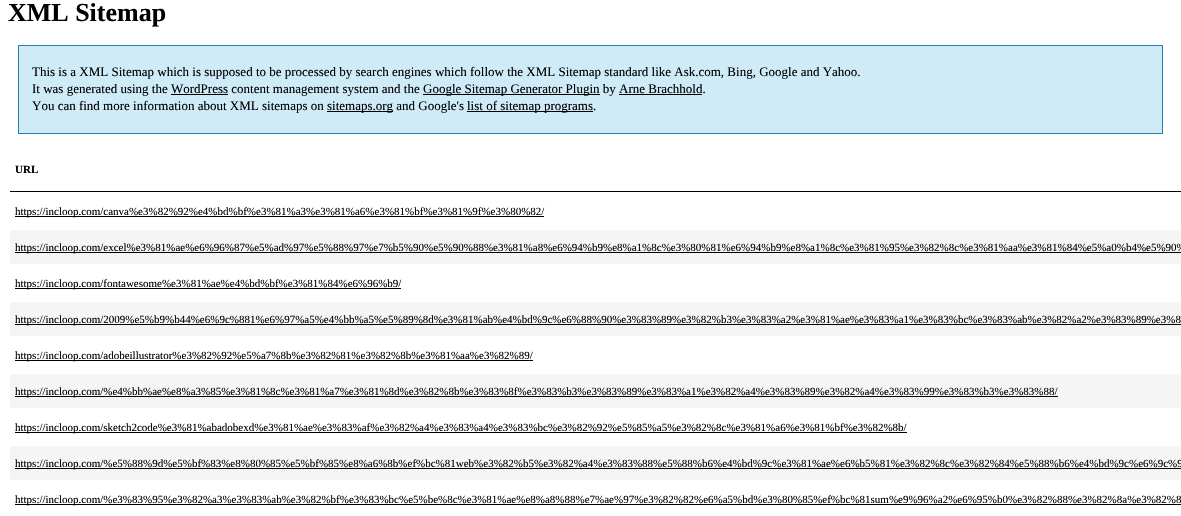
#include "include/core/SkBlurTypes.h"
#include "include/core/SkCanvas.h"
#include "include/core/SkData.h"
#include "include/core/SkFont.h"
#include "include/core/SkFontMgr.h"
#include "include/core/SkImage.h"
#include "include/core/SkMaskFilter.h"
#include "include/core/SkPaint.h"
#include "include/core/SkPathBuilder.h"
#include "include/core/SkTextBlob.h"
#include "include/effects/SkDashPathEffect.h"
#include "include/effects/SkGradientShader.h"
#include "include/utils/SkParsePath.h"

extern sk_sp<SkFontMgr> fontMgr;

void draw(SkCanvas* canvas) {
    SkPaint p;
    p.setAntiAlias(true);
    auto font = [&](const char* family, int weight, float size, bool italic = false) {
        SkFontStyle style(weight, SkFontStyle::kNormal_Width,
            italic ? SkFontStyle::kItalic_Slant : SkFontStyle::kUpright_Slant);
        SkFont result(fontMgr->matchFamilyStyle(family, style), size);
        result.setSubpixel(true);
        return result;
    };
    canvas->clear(0xFFFFFFFF);
    auto font1 = font("Liberation Serif", 700, 26);
    p.setColor(0xFF000000);
    canvas->drawString("XML Sitemap", 8, 21, font1, p);
    p.setColor(0xFFCFEBF7);
    canvas->drawRect(SkRect::MakeLTRB(18.5f, 45.5f, 1162.5f, 133.5f), p);
    p.setStyle(SkPaint::kStroke_Style);
    p.setStrokeWidth(1);
    p.setColor(0xFF2580B2);
    canvas->drawRect(SkRect::MakeLTRB(18.5f, 45.5f, 1162.5f, 133.5f), p);
    auto font2 = font("Liberation Serif", 400, 13);
    p.setStyle(SkPaint::kFill_Style);
    p.setColor(0xFF000000);
    canvas->drawString("This is a XML Sitemap which is supposed to be processed by search engines which follow the XML Sitemap standard like Ask.com, Bing, Google and Yahoo.", 32, 76, font2, p);
    canvas->drawString("It was generated using the WordPress content management system and the", 32, 93, font2, p);
    canvas->drawRect(SkRect::MakeLTRB(423, 94, 600, 95), p);
    canvas->drawString("Google Sitemap Generator Plugin by Arne Brachhold.", 423, 93, font2, p);
    canvas->drawRect(SkRect::MakeLTRB(171, 94, 228, 95), p);
    canvas->drawRect(SkRect::MakeLTRB(619, 94, 702, 95), p);
    canvas->drawString("You can find more information about XML sitemaps on", 32, 110, font2, p);
    canvas->drawRect(SkRect::MakeLTRB(327, 111, 393, 112), p);
    canvas->drawString("sitemaps.org and Google's", 327, 110, font2, p);
    canvas->drawRect(SkRect::MakeLTRB(467, 111, 593, 112), p);
    canvas->drawString("list of sitemap programs.", 467, 110, font2, p);
    canvas->drawRect(SkRect::MakeLTRB(10, 191, 1181, 192), p);
    auto font3 = font("Liberation Serif", 700, 11);
    canvas->drawString("URL", 15, 173, font3, p);
    canvas->drawRect(SkRect::MakeLTRB(15, 216, 544, 217), p);
    auto font4 = font("Liberation Serif", 400, 11);
    canvas->drawString("https://incloop.com/canva%e3%82%92%e4%bd%bf%e3%81%a3%e3%81%a6%e3%81%bf%e3%81%9f%e3%80%82/", 15, 215, font4, p);
    p.setColor(0xFFF5F5F5);
    canvas->drawRect(SkRect::MakeLTRB(10, 230, 1181, 264), p);
    p.setColor(0xFF000000);
    canvas->drawRect(SkRect::MakeLTRB(15, 252, 1181, 253), p);
    canvas->drawString("https://incloop.com/excel%e3%81%ae%e6%96%87%e5%ad%97%e5%88%97%e7%b5%90%e5%90%88%e3%81%a8%e6%94%b9%e8%a1%8c%e3%80%81%e6%94%b9%e8%a1%8c%e3%81%95%e3%82%8c%e3%81%aa%e3%81%84%e5%a0%b4%e5%90%", 15, 251, font4, p);
    canvas->drawRect(SkRect::MakeLTRB(15, 288, 401, 289), p);
    canvas->drawString("https://incloop.com/fontawesome%e3%81%ae%e4%bd%bf%e3%81%84%e6%96%b9/", 15, 287, font4, p);
    p.setColor(0xFFF5F5F5);
    canvas->drawRect(SkRect::MakeLTRB(10, 302, 1181, 336), p);
    p.setColor(0xFF000000);
    canvas->drawRect(SkRect::MakeLTRB(15, 324, 1181, 325), p);
    canvas->drawString("https://incloop.com/2009%e5%b9%b44%e6%9c%881%e6%97%a5%e4%bb%a5%e5%89%8d%e3%81%ab%e4%bd%9c%e6%88%90%e3%83%89%e3%82%b3%e3%83%a2%e3%81%ae%e3%83%a1%e3%83%bc%e3%83%ab%e3%82%a2%e3%83%89%e3%8", 15, 323, font4, p);
    canvas->drawRect(SkRect::MakeLTRB(15, 360, 533, 361), p);
    canvas->drawString("https://incloop.com/adobeillustrator%e3%82%92%e5%a7%8b%e3%82%81%e3%82%8b%e3%81%aa%e3%82%89/", 15, 359, font4, p);
    p.setColor(0xFFF5F5F5);
    canvas->drawRect(SkRect::MakeLTRB(10, 374, 1181, 408), p);
    p.setColor(0xFF000000);
    canvas->drawRect(SkRect::MakeLTRB(15, 396, 1058, 397), p);
    canvas->drawString("https://incloop.com/%e4%bb%ae%e8%a3%85%e3%81%8c%e3%81%a7%e3%81%8d%e3%82%8b%e3%83%8f%e3%83%b3%e3%83%89%e3%83%a1%e3%82%a4%e3%83%89%e3%82%a4%e3%83%99%e3%83%b3%e3%83%88/", 15, 395, font4, p);
    canvas->drawRect(SkRect::MakeLTRB(15, 432, 907, 433), p);
    canvas->drawString("https://incloop.com/sketch2code%e3%81%abadobexd%e3%81%ae%e3%83%af%e3%82%a4%e3%83%a4%e3%83%bc%e3%82%92%e5%85%a5%e3%82%8c%e3%81%a6%e3%81%bf%e3%82%8b/", 15, 431, font4, p);
    p.setColor(0xFFF5F5F5);
    canvas->drawRect(SkRect::MakeLTRB(10, 446, 1181, 480), p);
    p.setColor(0xFF000000);
    canvas->drawRect(SkRect::MakeLTRB(15, 468, 1181, 469), p);
    canvas->drawString("https://incloop.com/%e5%88%9d%e5%bf%83%e8%80%85%e5%bf%85%e8%a6%8b%ef%bc%81web%e3%82%b5%e3%82%a4%e3%83%88%e5%88%b6%e4%bd%9c%e3%81%ae%e6%b5%81%e3%82%8c%e3%82%84%e5%88%b6%e4%bd%9c%e6%9c%9", 15, 467, font4, p);
    canvas->drawRect(SkRect::MakeLTRB(15, 504, 1181, 505), p);
    canvas->drawString("https://incloop.com/%e3%83%95%e3%82%a3%e3%83%ab%e3%82%bf%e3%83%bc%e5%be%8c%e3%81%ae%e8%a8%88%e7%ae%97%e3%82%82%e6%a5%bd%e3%80%85%ef%bc%81sum%e9%96%a2%e6%95%b0%e3%82%88%e3%82%8a%e3%82%8", 15, 503, font4, p);
}
